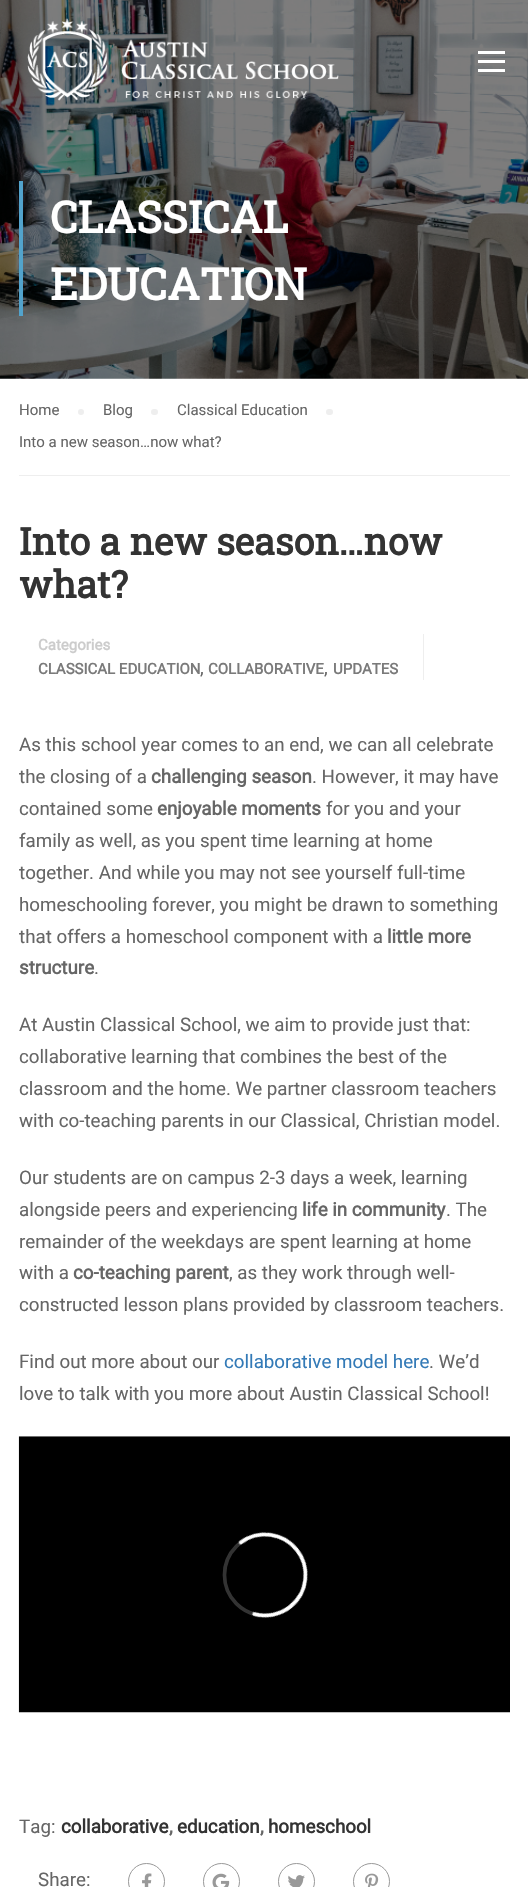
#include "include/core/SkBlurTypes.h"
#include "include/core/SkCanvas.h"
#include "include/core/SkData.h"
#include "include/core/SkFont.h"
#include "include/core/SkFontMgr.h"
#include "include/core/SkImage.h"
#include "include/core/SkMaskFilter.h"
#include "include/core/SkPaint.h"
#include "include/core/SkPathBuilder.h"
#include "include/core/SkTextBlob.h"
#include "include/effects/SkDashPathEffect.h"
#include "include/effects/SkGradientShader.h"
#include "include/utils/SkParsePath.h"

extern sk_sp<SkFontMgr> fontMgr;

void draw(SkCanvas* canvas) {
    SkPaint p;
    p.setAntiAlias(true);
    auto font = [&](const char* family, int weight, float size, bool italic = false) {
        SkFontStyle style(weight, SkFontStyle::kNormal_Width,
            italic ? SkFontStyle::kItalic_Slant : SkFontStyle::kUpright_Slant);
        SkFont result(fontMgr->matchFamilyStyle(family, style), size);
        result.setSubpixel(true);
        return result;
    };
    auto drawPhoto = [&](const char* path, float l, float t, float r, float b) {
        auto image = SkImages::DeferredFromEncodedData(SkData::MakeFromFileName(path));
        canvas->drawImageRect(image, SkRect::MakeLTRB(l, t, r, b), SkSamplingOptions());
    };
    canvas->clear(0xFFFFFFFF);
    drawPhoto("media/2.png", 0, 0, 528, 379);
    drawPhoto("media/1.png", 27, 18, 339, 101);
    {
        const struct { float l, t, r, b; SkColor color; } items[] = {
            {478, 51, 505, 54, 0xFFFFFFFF},
            {478, 60, 505, 63, 0xFFFFFFFF},
            {478, 69, 505, 72, 0xFFFFFFFF},
            {19, 181, 23, 316, 0xFF52A3CC},
        };
        for (auto [l, t, r, b, color] : items) {
            p.setColor(color);
            canvas->drawRect(SkRect::MakeLTRB(l, t, r, b), p);
        }
    }
    auto font1 = font("Roboto Slab", 700, 43.75f);
    p.setColor(0xFFFFFFFF);
    canvas->drawString("CLASSICAL", 50, 233, font1, p);
    canvas->drawString("EDUCATION", 50, 300, font1, p);
    p.setColor(0xFFEEEEEE);
    canvas->drawRect(SkRect::MakeLTRB(19, 475, 510, 476), p);
    auto font2 = font("Roboto", 400, 15);
    p.setColor(0xFF666666);
    canvas->drawString("Home", 19, 415, font2, p);
    p.setColor(0xFFEEEEEE);
    canvas->drawCircle(81, 412, 3, p);
    p.setColor(0xFF666666);
    canvas->drawString("Blog", 103, 415, font2, p);
    p.setColor(0xFFEEEEEE);
    canvas->drawRoundRect(SkRect::MakeLTRB(151, 409, 158, 415), 3, 3, p);
    p.setColor(0xFF666666);
    canvas->drawString("Classical Education", 177, 415, font2, p);
    p.setColor(0xFFEEEEEE);
    canvas->drawRoundRect(SkRect::MakeLTRB(326, 409, 333, 415), 3, 3, p);
    p.setColor(0xFF666666);
    canvas->drawString("Into a new season…now what?", 19, 447, font2, p);
    auto font3 = font("Roboto Slab", 700, 37.5f);
    p.setColor(0xFF333333);
    canvas->drawString("Into a new season…now", 19, 555, font3, p);
    canvas->drawString("what?", 19, 598, font3, p);
    p.setColor(0xFFEEEEEE);
    canvas->drawRect(SkRect::MakeLTRB(423, 634, 424, 680), p);
    auto font4 = font("Roboto", 700, 15);
    p.setColor(0xFFCCCCCC);
    canvas->drawString("Categories", 38, 650, font4, p);
    p.setColor(0xFF7A7A7A);
    canvas->drawString("CLASSICAL EDUCATION", 38, 674, font4, p);
    auto font5 = font("Roboto", 400, 18.75f);
    p.setColor(0xFF666666);
    canvas->drawString(",", 200, 674, font5, p);
    p.setColor(0xFF7A7A7A);
    canvas->drawString("COLLABORATIVE", 208, 674, font4, p);
    p.setColor(0xFF666666);
    canvas->drawString(",", 324, 674, font5, p);
    p.setColor(0xFF7A7A7A);
    canvas->drawString("UPDATES", 333, 674, font4, p);
    p.setColor(0xFF666666);
    canvas->drawString("As this school year comes to an end, we can all celebrate", 19, 751, font5, p);
    canvas->drawString("the closing of a", 19, 783, font5, p);
    auto font6 = font("Roboto", 700, 18.75f);
    canvas->drawString("challenging season", 151, 783, font6, p);
    canvas->drawString(". However, it may have", 312, 783, font5, p);
    canvas->drawString("contained some", 19, 815, font5, p);
    canvas->drawString("enjoyable moments", 157, 815, font6, p);
    {
        const struct { const char* s; float x, y; } items[] = {
            {"for you and your", 326, 815},
            {"family as well, as you spent time learning at home", 19, 847},
            {"together. And while you may not see yourself full-time", 19, 879},
            {"homeschooling forever, you might be drawn to something", 19, 911},
            {"that offers a homeschool component with a", 19, 943},
        };
        for (auto [s, x, y] : items) {
            canvas->drawString(s, x, y, font5, p);
        }
    }
    canvas->drawString("little more", 387, 943, font6, p);
    canvas->drawString("structure", 19, 974, font6, p);
    {
        const struct { const char* s; float x, y; } items[] = {
            {".", 94, 974},
            {"At Austin Classical School, we aim to provide just that:", 19, 1031},
            {"collaborative learning that combines the best of the", 19, 1063},
            {"classroom and the home. We partner classroom teachers", 19, 1095},
            {"with co-teaching parents in our Classical, Christian model.", 19, 1127},
            {"Our students are on campus 2-3 days a week, learning", 19, 1184},
            {"alongside peers and experiencing", 19, 1216},
        };
        for (auto [s, x, y] : items) {
            canvas->drawString(s, x, y, font5, p);
        }
    }
    canvas->drawString("life in community", 302, 1216, font6, p);
    {
        const struct { const char* s; float x, y; } items[] = {
            {". The", 446, 1216},
            {"remainder of the weekdays are spent learning at home", 19, 1248},
            {"with a", 19, 1279},
        };
        for (auto [s, x, y] : items) {
            canvas->drawString(s, x, y, font5, p);
        }
    }
    canvas->drawString("co-teaching parent", 73, 1279, font6, p);
    {
        const struct { const char* s; float x, y; } items[] = {
            {", as they work through well-", 229, 1279},
            {"constructed lesson plans provided by classroom teachers.", 19, 1311},
            {"Find out more about our", 19, 1368},
        };
        for (auto [s, x, y] : items) {
            canvas->drawString(s, x, y, font5, p);
        }
    }
    p.setColor(0xFF337AB7);
    canvas->drawString("collaborative model here", 224, 1368, font5, p);
    p.setColor(0xFF666666);
    canvas->drawString(". We’d", 429, 1368, font5, p);
    canvas->drawString("love to talk with you more about Austin Classical School!", 19, 1400, font5, p);
    drawPhoto("media/3.png", 18, 1436, 510, 1713);
    canvas->drawString("Tag:", 19, 1833, font5, p);
    p.setColor(0xFF333333);
    canvas->drawString("collaborative", 61, 1833, font6, p);
    p.setColor(0xFF666666);
    canvas->drawString(",", 169, 1833, font6, p);
    p.setColor(0xFF333333);
    canvas->drawString("education", 177, 1833, font6, p);
    p.setColor(0xFF666666);
    canvas->drawString(",", 260, 1833, font6, p);
    p.setColor(0xFF333333);
    canvas->drawString("homeschool", 268, 1833, font6, p);
    p.setColor(0xFF666666);
    canvas->drawString("Share:", 38, 1886, font5, p);
    p.setStyle(SkPaint::kStroke_Style);
    p.setStrokeWidth(1);
    p.setColor(0xFF999999);
    canvas->drawCircle(146.5f, 1881.5f, 18, p);
    drawPhoto("media/4.png", 142, 1873, 152, 1887);
    canvas->drawCircle(221.5f, 1881.5f, 18, p);
    drawPhoto("media/5.png", 212, 1873, 230, 1887);
    canvas->drawCircle(296.5f, 1881.5f, 18, p);
    drawPhoto("media/6.png", 288, 1875, 305, 1887);
    canvas->drawCircle(371.5f, 1881.5f, 18, p);
    drawPhoto("media/7.png", 365, 1873, 379, 1887);
}
